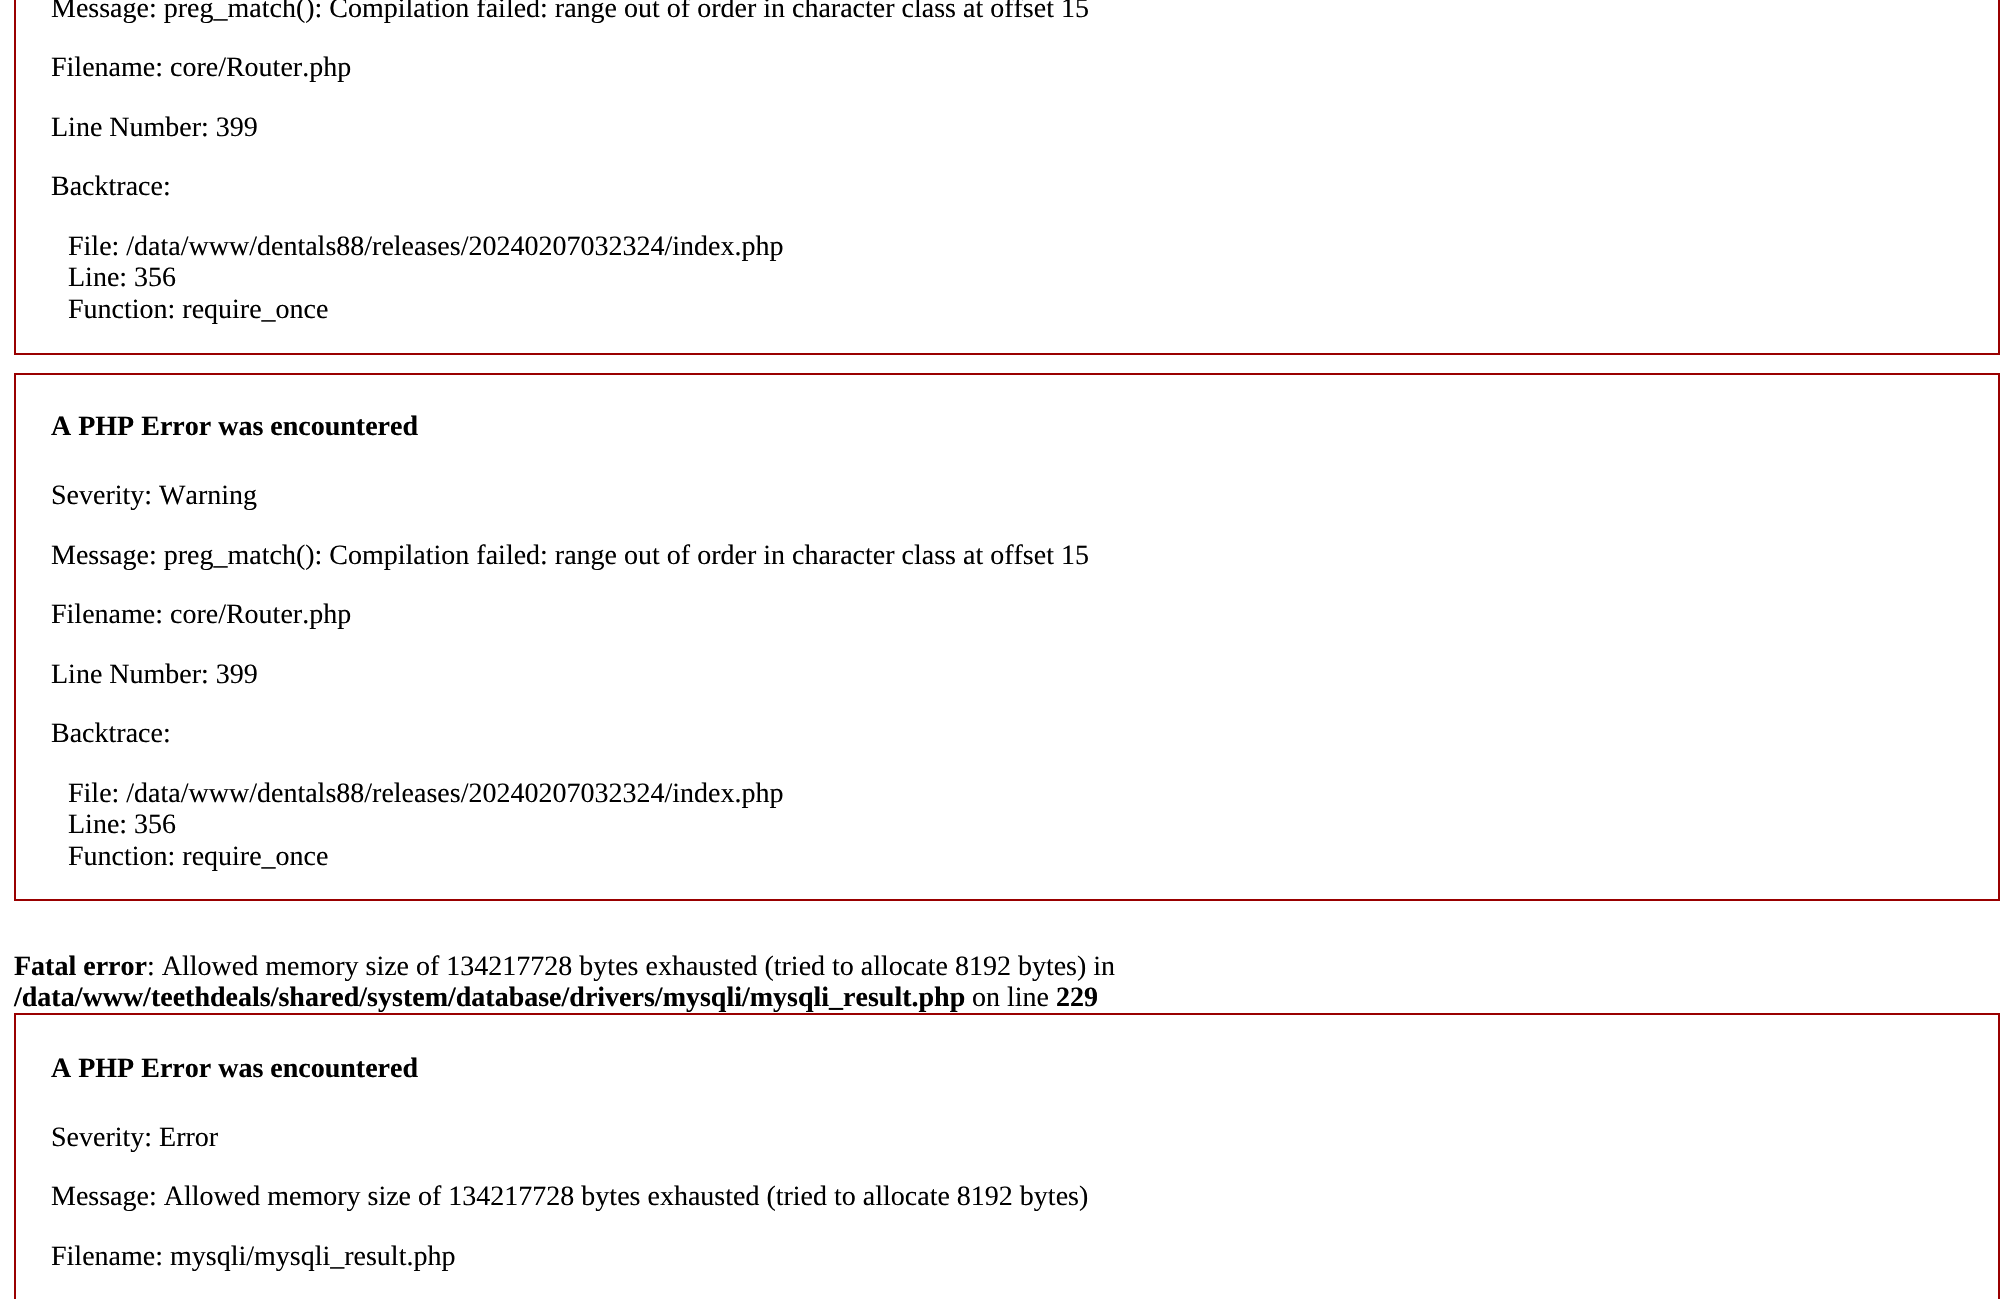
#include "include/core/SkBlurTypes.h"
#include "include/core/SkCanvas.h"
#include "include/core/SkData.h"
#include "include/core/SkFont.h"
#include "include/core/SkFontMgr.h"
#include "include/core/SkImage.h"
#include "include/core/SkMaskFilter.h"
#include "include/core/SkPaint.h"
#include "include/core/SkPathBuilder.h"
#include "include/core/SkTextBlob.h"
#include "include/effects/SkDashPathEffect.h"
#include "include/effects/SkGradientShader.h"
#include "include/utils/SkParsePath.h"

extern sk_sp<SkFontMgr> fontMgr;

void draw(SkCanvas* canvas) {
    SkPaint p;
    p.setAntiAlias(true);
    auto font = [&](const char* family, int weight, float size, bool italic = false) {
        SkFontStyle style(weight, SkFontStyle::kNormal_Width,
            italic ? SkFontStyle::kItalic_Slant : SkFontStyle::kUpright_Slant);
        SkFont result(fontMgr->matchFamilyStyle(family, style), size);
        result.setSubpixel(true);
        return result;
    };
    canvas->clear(0xFFFFFFFF);
    p.setStyle(SkPaint::kStroke_Style);
    p.setStrokeWidth(2);
    p.setColor(0xFF990000);
    canvas->drawRect(SkRect::MakeLTRB(15, -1, 1999, 354), p);
    auto font1 = font("Liberation Serif", 400, 28);
    p.setStyle(SkPaint::kFill_Style);
    p.setColor(0xFF000000);
    {
        const struct { const char* s; float x, y; } items[] = {
            {"Message: preg_match(): Compilation failed: range out of order in character class at offset 15", 51, 17},
            {"Filename: core/Router.php", 51, 76},
            {"Line Number: 399", 51, 136},
            {"Backtrace:", 51, 195},
            {"File: /data/www/dentals88/releases/20240207032324/index.php", 68, 255},
            {"Line: 356", 68, 286},
            {"Function: require_once", 68, 318},
        };
        for (auto [s, x, y] : items) {
            canvas->drawString(s, x, y, font1, p);
        }
    }
    p.setStyle(SkPaint::kStroke_Style);
    p.setColor(0xFF990000);
    canvas->drawRect(SkRect::MakeLTRB(15, 374, 1999, 900), p);
    auto font2 = font("Liberation Serif", 700, 28);
    p.setStyle(SkPaint::kFill_Style);
    p.setColor(0xFF000000);
    canvas->drawString("A PHP Error was encountered", 51, 435, font2, p);
    {
        const struct { const char* s; float x, y; } items[] = {
            {"Severity: Warning", 51, 504},
            {"Message: preg_match(): Compilation failed: range out of order in character class at offset 15", 51, 564},
            {"Filename: core/Router.php", 51, 623},
            {"Line Number: 399", 51, 683},
            {"Backtrace:", 51, 742},
            {"File: /data/www/dentals88/releases/20240207032324/index.php", 68, 802},
            {"Line: 356", 68, 833},
            {"Function: require_once", 68, 865},
        };
        for (auto [s, x, y] : items) {
            canvas->drawString(s, x, y, font1, p);
        }
    }
    canvas->drawString("Fatal error", 14, 975, font2, p);
    canvas->drawString(": Allowed memory size of 134217728 bytes exhausted (tried to allocate 8192 bytes) in", 147, 975, font1, p);
    canvas->drawString("/data/www/teethdeals/shared/system/database/drivers/mysqli/mysqli_result.php", 14, 1006, font2, p);
    canvas->drawString("on line", 972, 1006, font1, p);
    canvas->drawString("229", 1056, 1006, font2, p);
    p.setStyle(SkPaint::kStroke_Style);
    p.setColor(0xFF990000);
    canvas->drawRect(SkRect::MakeLTRB(15, 1014, 1999, 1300), p);
    p.setStyle(SkPaint::kFill_Style);
    p.setColor(0xFF000000);
    canvas->drawString("A PHP Error was encountered", 51, 1077, font2, p);
    {
        const struct { const char* s; float x, y; } items[] = {
            {"Severity: Error", 51, 1146},
            {"Message: Allowed memory size of 134217728 bytes exhausted (tried to allocate 8192 bytes)", 51, 1205},
            {"Filename: mysqli/mysqli_result.php", 51, 1265},
        };
        for (auto [s, x, y] : items) {
            canvas->drawString(s, x, y, font1, p);
        }
    }
}
